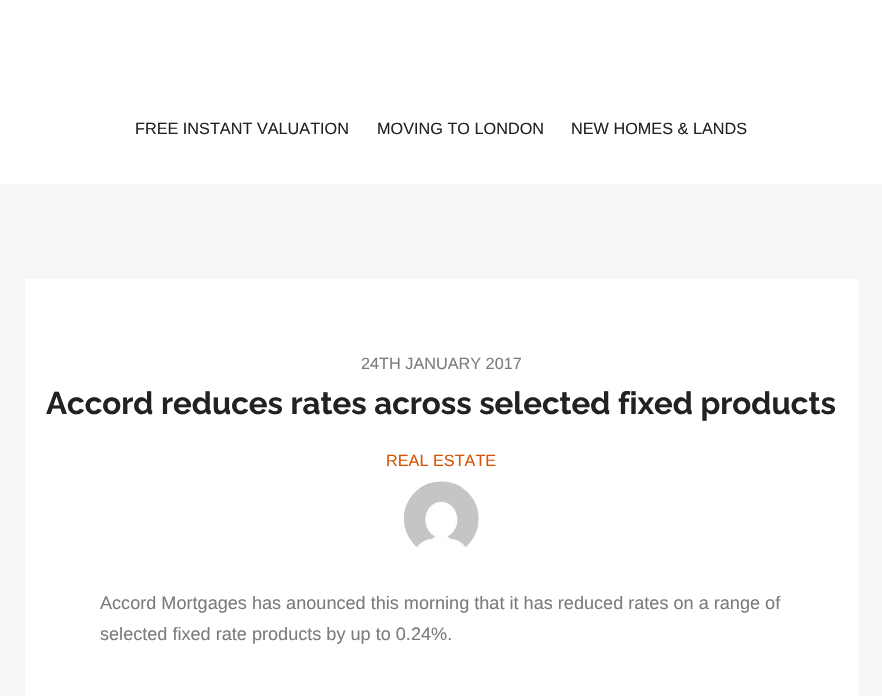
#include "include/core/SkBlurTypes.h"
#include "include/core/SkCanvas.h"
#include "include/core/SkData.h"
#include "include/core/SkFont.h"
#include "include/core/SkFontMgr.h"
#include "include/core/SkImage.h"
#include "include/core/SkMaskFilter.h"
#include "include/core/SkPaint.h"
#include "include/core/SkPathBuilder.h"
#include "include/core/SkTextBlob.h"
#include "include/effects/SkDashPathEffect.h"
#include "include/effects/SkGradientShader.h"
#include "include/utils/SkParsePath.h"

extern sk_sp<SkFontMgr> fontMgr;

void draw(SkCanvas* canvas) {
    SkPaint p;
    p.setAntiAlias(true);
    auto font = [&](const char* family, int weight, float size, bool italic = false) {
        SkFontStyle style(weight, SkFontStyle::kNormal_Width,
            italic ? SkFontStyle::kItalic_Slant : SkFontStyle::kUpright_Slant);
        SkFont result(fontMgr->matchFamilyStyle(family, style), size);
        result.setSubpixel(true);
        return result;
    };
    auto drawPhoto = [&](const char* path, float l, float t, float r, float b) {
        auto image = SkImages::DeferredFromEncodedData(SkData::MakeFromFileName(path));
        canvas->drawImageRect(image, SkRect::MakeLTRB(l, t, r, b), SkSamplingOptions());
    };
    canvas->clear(0xFFF7F7F7);
    p.setColor(0xFFFFFFFF);
    canvas->drawRect(SkRect::MakeLTRB(0, 0, 882, 184), p);
    auto font1 = font("Liberation Sans", 400, 16.25f);
    p.setColor(0xFF222222);
    {
        const struct { const char* s; float x, y; } items[] = {
            {"FREE INSTANT VALUATION", 135, 134},
            {"MOVING TO LONDON", 377, 134},
            {"NEW HOMES & LANDS", 571, 134},
        };
        for (auto [s, x, y] : items) {
            canvas->drawString(s, x, y, font1, p);
        }
    }
    p.setColor(0xFFFFFFFF);
    canvas->drawRect(SkRect::MakeLTRB(25, 279, 858, 696), p);
    p.setColor(0xFF7B7B7B);
    canvas->drawString("24TH JANUARY 2017", 361, 369, font1, p);
    auto font2 = font("Raleway", 700, 31.25f);
    p.setColor(0xFF222222);
    canvas->drawString("Accord reduces rates across selected fixed products", 46, 414, font2, p);
    p.setColor(0xFFD95204);
    canvas->drawString("REAL ESTATE", 386, 466, font1, p);
    drawPhoto("media/1.png", 404, 481, 479, 548);
    auto font3 = font("Liberation Sans", 400, 18.1f);
    p.setColor(0xFF7B7B7B);
    canvas->drawString("Accord Mortgages has anounced this morning that it has reduced rates on a range of", 100, 609, font3, p);
    canvas->drawString("selected fixed rate products by up to 0.24%.", 100, 640, font3, p);
}
